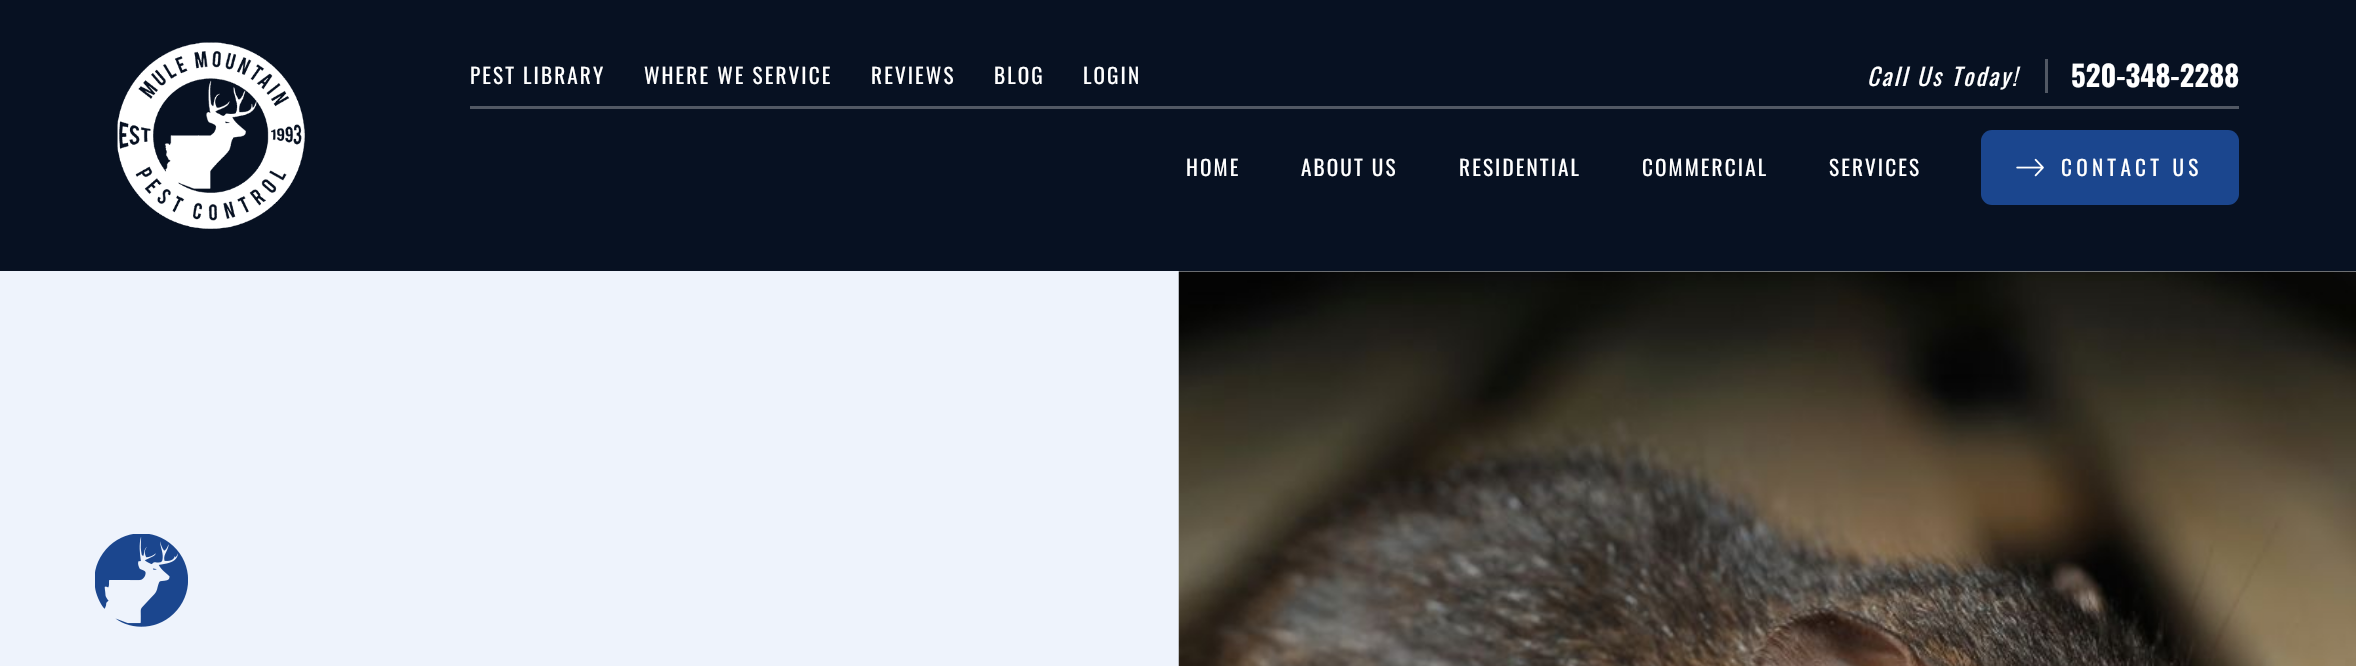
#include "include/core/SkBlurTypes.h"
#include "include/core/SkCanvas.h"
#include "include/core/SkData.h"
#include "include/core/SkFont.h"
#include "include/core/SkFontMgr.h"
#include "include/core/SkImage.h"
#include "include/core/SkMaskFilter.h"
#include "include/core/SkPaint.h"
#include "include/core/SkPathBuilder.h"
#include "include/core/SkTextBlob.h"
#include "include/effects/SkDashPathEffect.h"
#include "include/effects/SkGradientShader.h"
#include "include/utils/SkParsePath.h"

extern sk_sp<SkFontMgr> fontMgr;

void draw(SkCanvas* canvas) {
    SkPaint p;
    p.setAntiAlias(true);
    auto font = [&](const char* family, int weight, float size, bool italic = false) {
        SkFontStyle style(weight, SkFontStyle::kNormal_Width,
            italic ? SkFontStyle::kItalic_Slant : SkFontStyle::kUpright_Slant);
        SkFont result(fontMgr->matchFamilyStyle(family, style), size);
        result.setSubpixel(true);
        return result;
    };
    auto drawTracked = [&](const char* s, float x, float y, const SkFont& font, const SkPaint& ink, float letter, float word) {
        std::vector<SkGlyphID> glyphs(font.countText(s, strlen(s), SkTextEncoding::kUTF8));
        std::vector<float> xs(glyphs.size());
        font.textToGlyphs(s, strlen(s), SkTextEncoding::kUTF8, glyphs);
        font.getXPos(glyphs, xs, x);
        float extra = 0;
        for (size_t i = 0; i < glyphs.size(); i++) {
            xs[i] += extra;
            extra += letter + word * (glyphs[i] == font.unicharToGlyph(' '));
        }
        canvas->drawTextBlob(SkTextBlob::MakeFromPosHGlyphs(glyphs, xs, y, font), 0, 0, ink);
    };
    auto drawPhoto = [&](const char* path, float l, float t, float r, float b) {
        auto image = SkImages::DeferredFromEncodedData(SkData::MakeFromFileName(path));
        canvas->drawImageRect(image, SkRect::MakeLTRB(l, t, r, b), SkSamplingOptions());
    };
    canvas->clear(0xFFEEF3FC);
    p.setColor(0xFF071122);
    canvas->drawRect(SkRect::MakeLTRB(0, 0, 2356, 271), p);
    drawPhoto("media/1.png", 117, 42, 305, 229);
    p.setColor(0xFF515864);
    canvas->drawRect(SkRect::MakeLTRB(470, 106, 2239, 109), p);
    auto font1 = font("Oswald", 400, 21.25f);
    p.setColor(0xFFFFFFFF);
    {
        const struct { const char* s; float x, y; } items[] = {
            {"PEST LIBRARY", 470, 84},
            {"WHERE WE SERVICE", 644, 84},
            {"REVIEWS", 871, 84},
            {"BLOG", 994, 84},
            {"LOGIN", 1083, 84},
        };
        for (auto [s, x, y] : items) {
            drawTracked(s, x, y, font1, p, 2.1f, 0);
        }
    }
    auto font2 = font("Oswald", 400, 23.75f, true);
    drawTracked("Call Us Today!", 1867, 86, font2, p, 2.3f, 0);
    p.setColor(0xFF515864);
    canvas->drawRect(SkRect::MakeLTRB(2045, 59, 2048, 93), p);
    auto font3 = font("Oswald", 700, 28.75f);
    p.setColor(0xFFFFFFFF);
    canvas->drawString("520-348-2288", 2071, 87, font3, p);
    {
        const struct { const char* s; float x, y; } items[] = {
            {"HOME", 1186, 176},
            {"ABOUT US", 1301, 176},
            {"RESIDENTIAL", 1459, 176},
            {"COMMERCIAL", 1642, 176},
            {"SERVICES", 1829, 176},
        };
        for (auto [s, x, y] : items) {
            drawTracked(s, x, y, font1, p, 2.1f, 0);
        }
    }
    p.setColor(0xFF1B468E);
    canvas->drawRoundRect(SkRect::MakeLTRB(1981, 130, 2239, 205), 11, 11, p);
    drawPhoto("media/2.png", 2016, 158, 2044, 177);
    p.setColor(0xFFFFFFFF);
    drawTracked("CONTACT US", 2061, 176, font1, p, 4.25f, 0);
    drawPhoto("media/3.png", 95, 534, 188, 627);
    drawPhoto("media/4.png", 1178, 271, 2356, 666);
}
